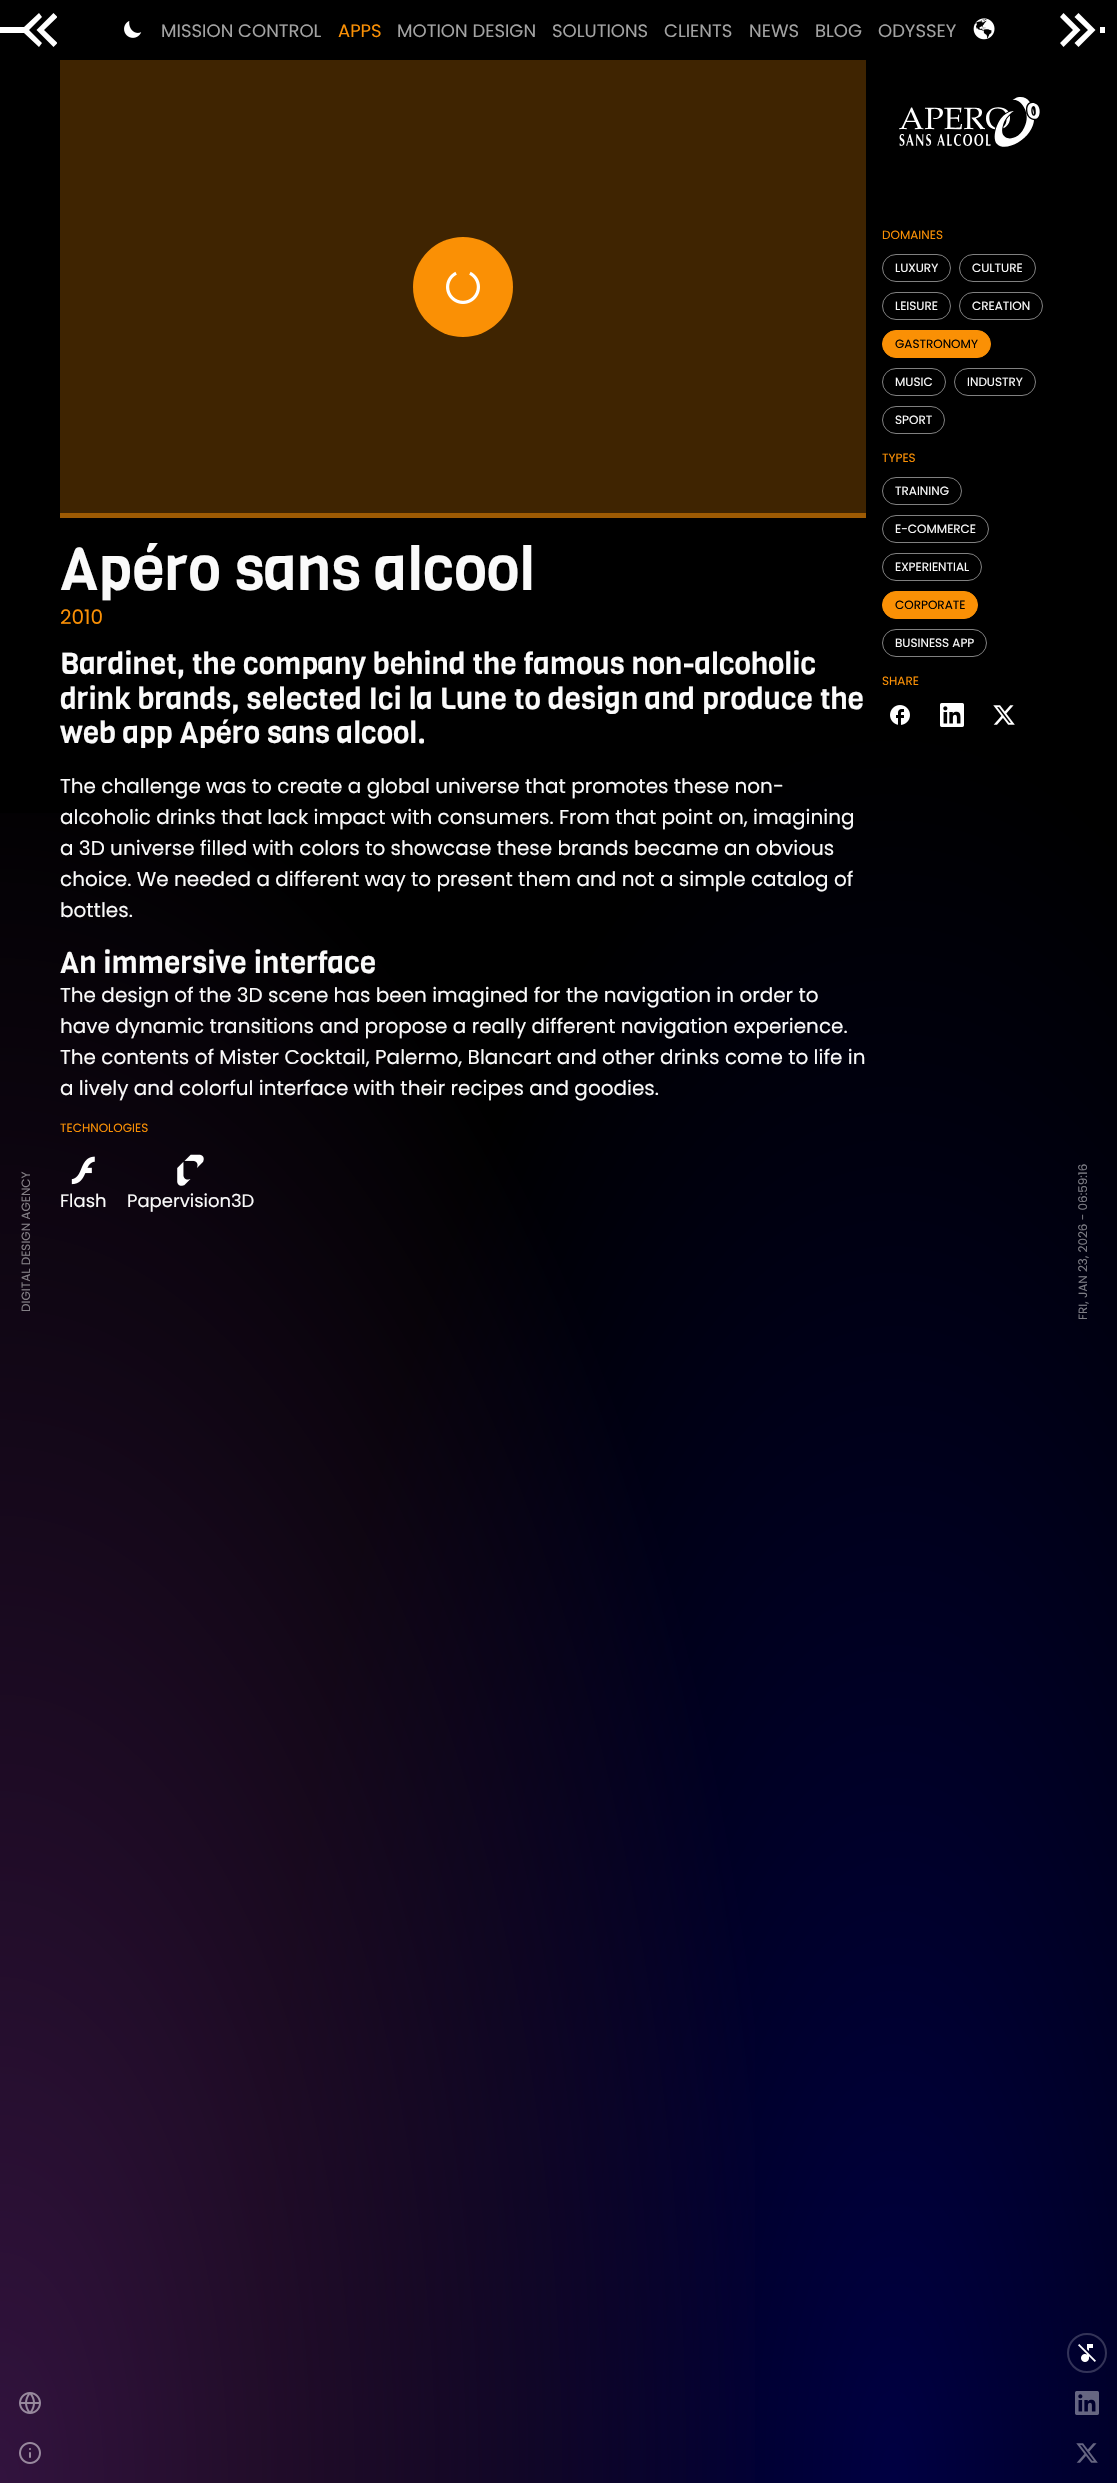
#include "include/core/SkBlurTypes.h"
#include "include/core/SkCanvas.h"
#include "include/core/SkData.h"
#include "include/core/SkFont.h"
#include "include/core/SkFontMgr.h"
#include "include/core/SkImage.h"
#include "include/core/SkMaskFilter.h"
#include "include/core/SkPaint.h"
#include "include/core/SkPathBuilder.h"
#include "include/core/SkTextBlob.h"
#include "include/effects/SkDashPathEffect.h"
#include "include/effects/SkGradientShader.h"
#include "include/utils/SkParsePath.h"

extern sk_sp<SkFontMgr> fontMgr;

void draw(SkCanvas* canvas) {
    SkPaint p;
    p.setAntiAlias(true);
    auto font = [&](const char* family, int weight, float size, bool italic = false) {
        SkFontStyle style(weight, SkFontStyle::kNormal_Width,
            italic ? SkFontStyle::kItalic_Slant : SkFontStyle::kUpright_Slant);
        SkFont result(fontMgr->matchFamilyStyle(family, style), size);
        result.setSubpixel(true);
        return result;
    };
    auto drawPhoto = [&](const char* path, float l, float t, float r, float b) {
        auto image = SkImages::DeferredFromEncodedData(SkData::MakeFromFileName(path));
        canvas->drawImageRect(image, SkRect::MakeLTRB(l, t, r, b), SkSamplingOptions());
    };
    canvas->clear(0xFFFFFFFF);
    {
        const SkColor colors[] = {0xFF000042, 0xFF000000};
        const float stops[] = {0, 0.5f};
        SkMatrix m = SkMatrix::Translate(894, 2483).preScale(1264, 3511);
        p.setShader(SkGradientShader::MakeRadial({0, 0}, 1, colors, stops, 2, SkTileMode::kClamp, 0, &m));
        p.setAlpha(255);
    }
    canvas->drawRect(SkRect::MakeLTRB(0, 0, 1117, 2483), p);
    {
        const SkColor colors[] = {0xFF32133E, 0x0032133E};
        const float stops[] = {0, 0.5f};
        SkMatrix m = SkMatrix::Translate(0, 2483).preScale(1580, 3511);
        p.setShader(SkGradientShader::MakeRadial({0, 0}, 1, colors, stops, 2, SkTileMode::kClamp, 0, &m));
        p.setAlpha(255);
    }
    canvas->drawRect(SkRect::MakeLTRB(0, 813, 755, 2483), p);
    canvas->save();
    canvas->clipRect(SkRect::MakeLTRB(0, 13, 57, 47));
    p.setShader(nullptr);
    p.setColor(0xFFFFFFFF);
    canvas->drawPath(SkPathBuilder().moveTo(57.5f, 17).lineTo(53.5f, 13).lineTo(36.5f, 30).lineTo(53.5f, 47).lineTo(57.5f, 43).lineTo(44, 30).close().detach(), p);
    canvas->restore();
    canvas->drawPath(SkPathBuilder().moveTo(42, 17).lineTo(39, 13).lineTo(24, 27).lineTo(0, 27).lineTo(0, 33).lineTo(24, 33).lineTo(39, 47).lineTo(42, 43).lineTo(29, 30).close().detach(), p);
    canvas->drawPath(SkPathBuilder().moveTo(1063.5f, 13).lineTo(1060, 17).lineTo(1073, 30).lineTo(1060, 43).lineTo(1063.5f, 47).lineTo(1080.5f, 30).close().detach(), p);
    canvas->drawRect(SkRect::MakeLTRB(1100, 27, 1105, 33), p);
    canvas->drawPath(SkPathBuilder().moveTo(1074.5f, 17).lineTo(1088, 30).lineTo(1074.5f, 43).lineTo(1078.5f, 47).lineTo(1095.5f, 30).lineTo(1078.5f, 13).close().detach(), p);
    drawPhoto("media/1.png", 124, 21, 142, 38);
    auto font1 = font("Poppins", 400, 18);
    p.setColor(0xFFA3A3A3);
    canvas->drawString("MISSION CONTROL", 161, 37, font1, p);
    p.setColor(0xFFFA9005);
    canvas->drawString("APPS", 338, 37, font1, p);
    p.setColor(0xFFA3A3A3);
    {
        const struct { const char* s; float x, y; } items[] = {
            {"MOTION DESIGN", 397, 37},
            {"SOLUTIONS", 552, 37},
            {"CLIENTS", 664, 37},
            {"NEWS", 749, 37},
            {"BLOG", 815, 37},
            {"ODYSSEY", 878, 37},
        };
        for (auto [s, x, y] : items) {
            canvas->drawString(s, x, y, font1, p);
        }
    }
    drawPhoto("media/2.png", 973, 18, 995, 40);
    drawPhoto("media/3.png", 899, 97, 1040, 147);
    auto font2 = font("Poppins", 400, 12);
    p.setColor(0xFFFA9005);
    canvas->drawString("DOMAINES", 882, 239, font2, p);
    p.setStyle(SkPaint::kStroke_Style);
    p.setStrokeWidth(1);
    p.setColor(0xFF808080);
    canvas->drawRoundRect(SkRect::MakeLTRB(882.5f, 254.5f, 950.5f, 281.5f), 13.5f, 13.5f, p);
    p.setStyle(SkPaint::kFill_Style);
    p.setColor(0xFFFAFAFA);
    canvas->drawString("LUXURY", 895, 272, font2, p);
    p.setStyle(SkPaint::kStroke_Style);
    p.setColor(0xFF808080);
    canvas->drawRoundRect(SkRect::MakeLTRB(959.5f, 254.5f, 1035.5f, 281.5f), 13.5f, 13.5f, p);
    p.setStyle(SkPaint::kFill_Style);
    p.setColor(0xFFFAFAFA);
    canvas->drawString("CULTURE", 972, 272, font2, p);
    p.setStyle(SkPaint::kStroke_Style);
    p.setColor(0xFF808080);
    canvas->drawRoundRect(SkRect::MakeLTRB(882.5f, 292.5f, 950.5f, 319.5f), 13.5f, 13.5f, p);
    p.setStyle(SkPaint::kFill_Style);
    p.setColor(0xFFFAFAFA);
    canvas->drawString("LEISURE", 895, 310, font2, p);
    p.setStyle(SkPaint::kStroke_Style);
    p.setColor(0xFF808080);
    canvas->drawRoundRect(SkRect::MakeLTRB(959.5f, 292.5f, 1042.5f, 319.5f), 13.5f, 13.5f, p);
    p.setStyle(SkPaint::kFill_Style);
    p.setColor(0xFFFAFAFA);
    canvas->drawString("CREATION", 972, 310, font2, p);
    p.setColor(0xFFFA9005);
    canvas->drawRoundRect(SkRect::MakeLTRB(882.5f, 330.5f, 990.5f, 357.5f), 13.5f, 13.5f, p);
    p.setStyle(SkPaint::kStroke_Style);
    canvas->drawRoundRect(SkRect::MakeLTRB(882.5f, 330.5f, 990.5f, 357.5f), 13.5f, 13.5f, p);
    p.setStyle(SkPaint::kFill_Style);
    p.setColor(0xFF000000);
    canvas->drawString("GASTRONOMY", 895, 348, font2, p);
    p.setStyle(SkPaint::kStroke_Style);
    p.setColor(0xFF808080);
    canvas->drawRoundRect(SkRect::MakeLTRB(882.5f, 368.5f, 945.5f, 395.5f), 13.5f, 13.5f, p);
    p.setStyle(SkPaint::kFill_Style);
    p.setColor(0xFFFAFAFA);
    canvas->drawString("MUSIC", 895, 386, font2, p);
    p.setStyle(SkPaint::kStroke_Style);
    p.setColor(0xFF808080);
    canvas->drawRoundRect(SkRect::MakeLTRB(954.5f, 368.5f, 1035.5f, 395.5f), 13.5f, 13.5f, p);
    p.setStyle(SkPaint::kFill_Style);
    p.setColor(0xFFFAFAFA);
    canvas->drawString("INDUSTRY", 967, 386, font2, p);
    p.setStyle(SkPaint::kStroke_Style);
    p.setColor(0xFF808080);
    canvas->drawRoundRect(SkRect::MakeLTRB(882.5f, 406.5f, 944.5f, 433.5f), 13.5f, 13.5f, p);
    p.setStyle(SkPaint::kFill_Style);
    p.setColor(0xFFFAFAFA);
    canvas->drawString("SPORT", 895, 424, font2, p);
    p.setColor(0xFFFA9005);
    canvas->drawString("TYPES", 882, 462, font2, p);
    p.setStyle(SkPaint::kStroke_Style);
    p.setColor(0xFF808080);
    canvas->drawRoundRect(SkRect::MakeLTRB(882.5f, 477.5f, 961.5f, 504.5f), 13.5f, 13.5f, p);
    p.setStyle(SkPaint::kFill_Style);
    p.setColor(0xFFFAFAFA);
    canvas->drawString("TRAINING", 895, 495, font2, p);
    p.setStyle(SkPaint::kStroke_Style);
    p.setColor(0xFF808080);
    canvas->drawRoundRect(SkRect::MakeLTRB(882.5f, 515.5f, 988.5f, 542.5f), 13.5f, 13.5f, p);
    p.setStyle(SkPaint::kFill_Style);
    p.setColor(0xFFFAFAFA);
    canvas->drawString("E-COMMERCE", 895, 533, font2, p);
    p.setStyle(SkPaint::kStroke_Style);
    p.setColor(0xFF808080);
    canvas->drawRoundRect(SkRect::MakeLTRB(882.5f, 553.5f, 981.5f, 580.5f), 13.5f, 13.5f, p);
    p.setStyle(SkPaint::kFill_Style);
    p.setColor(0xFFFAFAFA);
    canvas->drawString("EXPERIENTIAL", 895, 571, font2, p);
    p.setColor(0xFFFA9005);
    canvas->drawRoundRect(SkRect::MakeLTRB(882.5f, 591.5f, 977.5f, 618.5f), 13.5f, 13.5f, p);
    p.setStyle(SkPaint::kStroke_Style);
    canvas->drawRoundRect(SkRect::MakeLTRB(882.5f, 591.5f, 977.5f, 618.5f), 13.5f, 13.5f, p);
    p.setStyle(SkPaint::kFill_Style);
    p.setColor(0xFF000000);
    canvas->drawString("CORPORATE", 895, 609, font2, p);
    p.setStyle(SkPaint::kStroke_Style);
    p.setColor(0xFF808080);
    canvas->drawRoundRect(SkRect::MakeLTRB(882.5f, 629.5f, 986.5f, 656.5f), 13.5f, 13.5f, p);
    p.setStyle(SkPaint::kFill_Style);
    p.setColor(0xFFFAFAFA);
    canvas->drawString("BUSINESS APP", 895, 647, font2, p);
    p.setColor(0xFFFA9005);
    canvas->drawString("SHARE", 882, 685, font2, p);
    drawPhoto("media/4.png", 890, 705, 910, 725);
    drawPhoto("media/5.png", 940, 703, 964, 727);
    drawPhoto("media/6.png", 993, 705, 1015, 725);
    p.setColor(0xFF3F2401);
    canvas->drawRect(SkRect::MakeLTRB(60, 60, 866, 513), p);
    p.setColor(0xFFFA9005);
    canvas->drawCircle(463, 287, 50, p);
    drawPhoto("media/7.png", 446, 271, 480, 304);
    p.setColor(0xFF9D5A03);
    canvas->drawRect(SkRect::MakeLTRB(60, 513, 866, 518), p);
    auto font3 = font("Viga", 400, 60);
    p.setColor(0xFFFAFAFA);
    canvas->drawString("Apéro sans alcool", 60, 590, font3, p);
    auto font4 = font("Poppins", 400, 20);
    p.setColor(0xFFFA9005);
    canvas->drawString("2010", 60, 624, font4, p);
    auto font5 = font("Viga", 400, 30);
    p.setColor(0xFFFAFAFA);
    {
        const struct { const char* s; float x, y; } items[] = {
            {"Bardinet, the company behind the famous non-alcoholic", 60, 674},
            {"drink brands, selected Ici la Lune to design and produce the", 60, 709},
            {"web app Apéro sans alcool.", 60, 743},
        };
        for (auto [s, x, y] : items) {
            canvas->drawString(s, x, y, font5, p);
        }
    }
    {
        const struct { const char* s; float x, y; } items[] = {
            {"The challenge was to create a global universe that promotes these non-", 60, 793},
            {"alcoholic drinks that lack impact with consumers. From that point on, imagining", 60, 824},
            {"a 3D universe filled with colors to showcase these brands became an obvious", 60, 855},
            {"choice. We needed a different way to present them and not a simple catalog of", 60, 886},
            {"bottles.", 60, 917},
        };
        for (auto [s, x, y] : items) {
            canvas->drawString(s, x, y, font4, p);
        }
    }
    canvas->drawString("An immersive interface", 60, 973, font5, p);
    {
        const struct { const char* s; float x, y; } items[] = {
            {"The design of the 3D scene has been imagined for the navigation in order to", 60, 1002},
            {"have dynamic transitions and propose a really different navigation experience.", 60, 1033},
            {"The contents of Mister Cocktail, Palermo, Blancart and other drinks come to life in", 60, 1064},
            {"a lively and colorful interface with their recipes and goodies.", 60, 1095},
        };
        for (auto [s, x, y] : items) {
            canvas->drawString(s, x, y, font4, p);
        }
    }
    p.setColor(0xFFFA9005);
    canvas->drawString("TECHNOLOGIES", 60, 1132, font2, p);
    drawPhoto("media/8.png", 71, 1156, 95, 1185);
    p.setColor(0xFFFAFAFA);
    canvas->drawString("Flash", 60, 1207, font1, p);
    drawPhoto("media/9.png", 177, 1154, 204, 1186);
    canvas->drawString("Papervision3D", 127, 1207, font1, p);
    p.setColor(0xFF848086);
    canvas->save();
    canvas->rotate(-90, 30, 1312);
    canvas->drawString("DIGITAL DESIGN AGENCY", 30, 1312, font2, p);
    canvas->restore();
    p.setColor(0xFF7D7D85);
    canvas->save();
    canvas->rotate(-90, 1087, 1320);
    canvas->drawString("FRI, JAN 23, 2026 - 06:59:16", 1087, 1320, font2, p);
    canvas->restore();
    drawPhoto("media/10.png", 19, 2392, 41, 2414);
    drawPhoto("media/11.png", 19, 2442, 41, 2464);
    p.setStyle(SkPaint::kStroke_Style);
    p.setStrokeWidth(2);
    p.setColor(0x33FFFFFF);
    canvas->drawCircle(1087, 2353, 19, p);
    drawPhoto("media/12.png", 1078, 2344, 1096, 2362);
    drawPhoto("media/13.png", 1075, 2391, 1099, 2415);
    drawPhoto("media/14.png", 1076, 2443, 1098, 2463);
}
